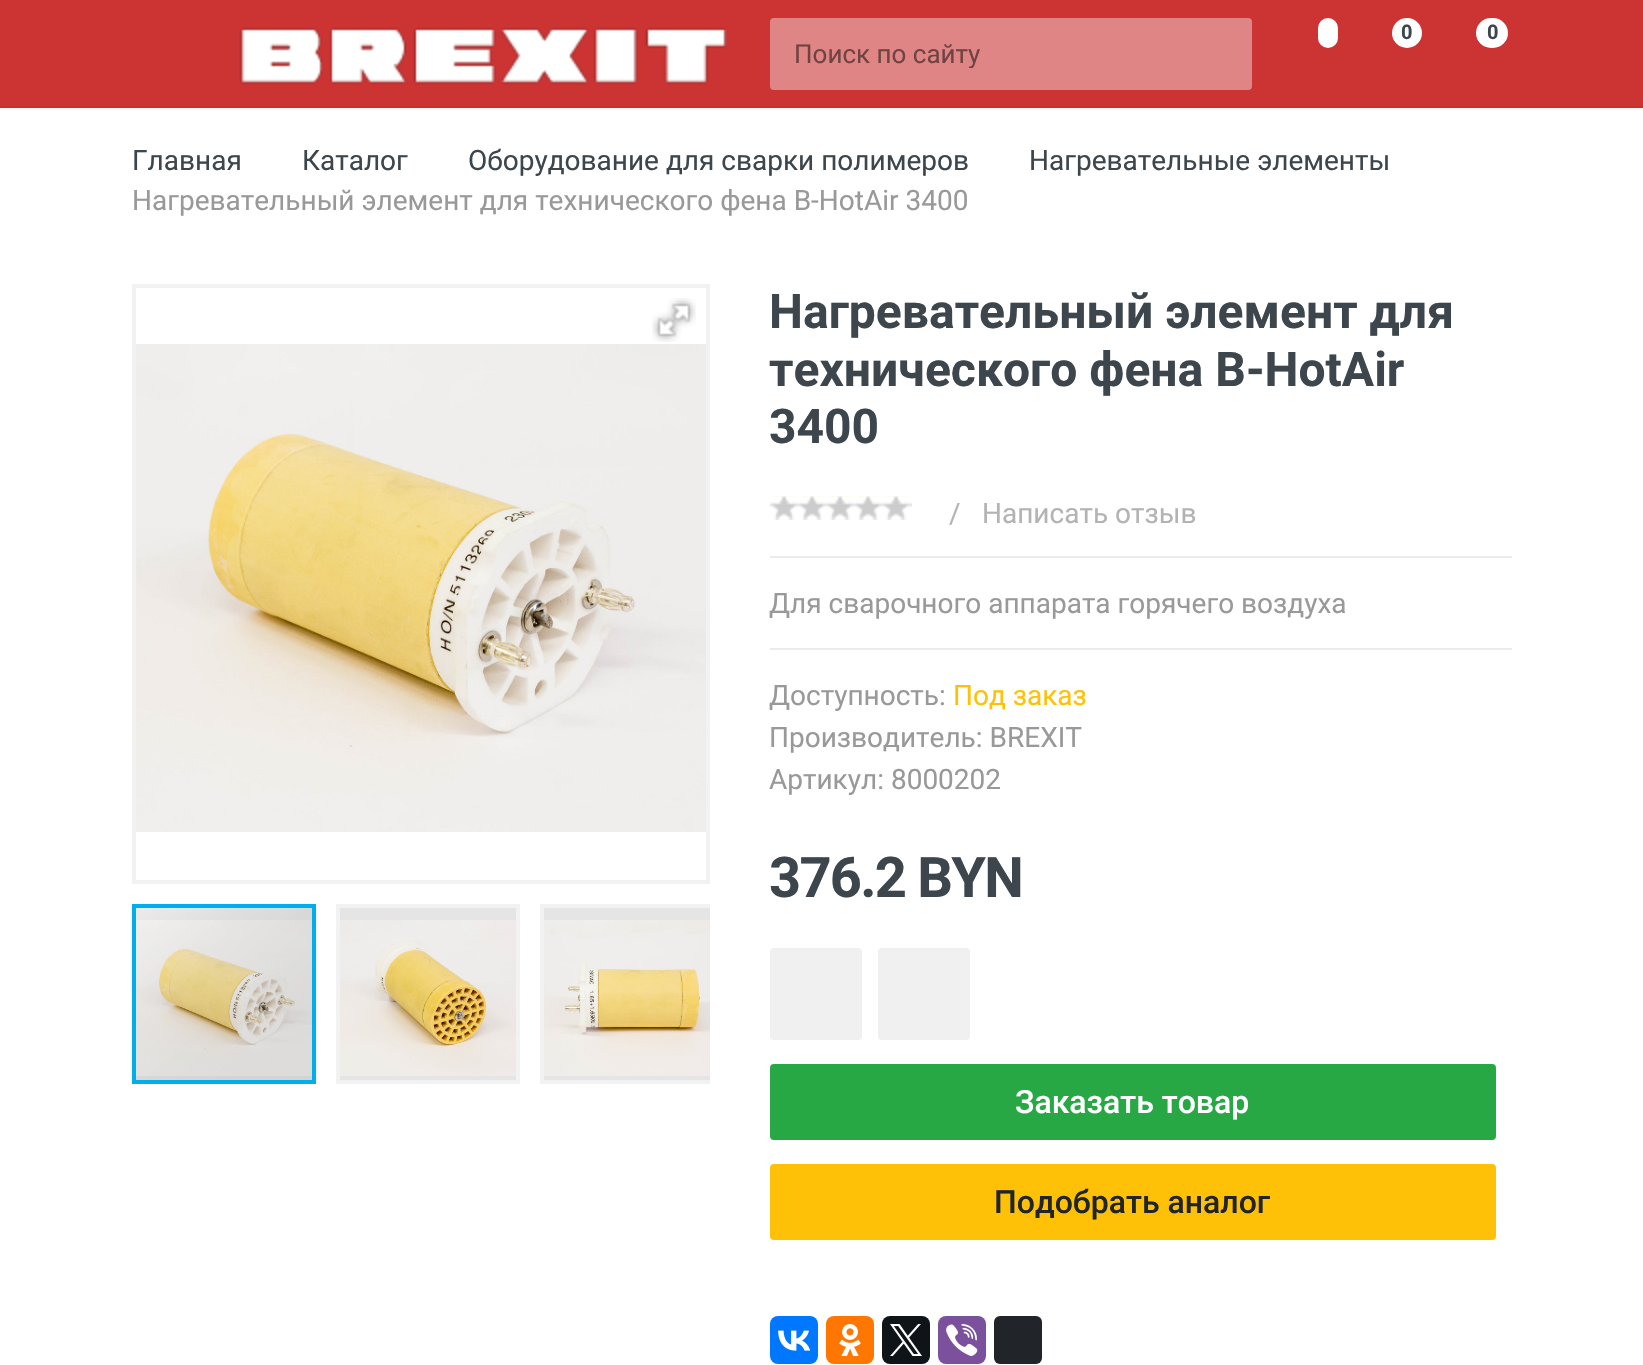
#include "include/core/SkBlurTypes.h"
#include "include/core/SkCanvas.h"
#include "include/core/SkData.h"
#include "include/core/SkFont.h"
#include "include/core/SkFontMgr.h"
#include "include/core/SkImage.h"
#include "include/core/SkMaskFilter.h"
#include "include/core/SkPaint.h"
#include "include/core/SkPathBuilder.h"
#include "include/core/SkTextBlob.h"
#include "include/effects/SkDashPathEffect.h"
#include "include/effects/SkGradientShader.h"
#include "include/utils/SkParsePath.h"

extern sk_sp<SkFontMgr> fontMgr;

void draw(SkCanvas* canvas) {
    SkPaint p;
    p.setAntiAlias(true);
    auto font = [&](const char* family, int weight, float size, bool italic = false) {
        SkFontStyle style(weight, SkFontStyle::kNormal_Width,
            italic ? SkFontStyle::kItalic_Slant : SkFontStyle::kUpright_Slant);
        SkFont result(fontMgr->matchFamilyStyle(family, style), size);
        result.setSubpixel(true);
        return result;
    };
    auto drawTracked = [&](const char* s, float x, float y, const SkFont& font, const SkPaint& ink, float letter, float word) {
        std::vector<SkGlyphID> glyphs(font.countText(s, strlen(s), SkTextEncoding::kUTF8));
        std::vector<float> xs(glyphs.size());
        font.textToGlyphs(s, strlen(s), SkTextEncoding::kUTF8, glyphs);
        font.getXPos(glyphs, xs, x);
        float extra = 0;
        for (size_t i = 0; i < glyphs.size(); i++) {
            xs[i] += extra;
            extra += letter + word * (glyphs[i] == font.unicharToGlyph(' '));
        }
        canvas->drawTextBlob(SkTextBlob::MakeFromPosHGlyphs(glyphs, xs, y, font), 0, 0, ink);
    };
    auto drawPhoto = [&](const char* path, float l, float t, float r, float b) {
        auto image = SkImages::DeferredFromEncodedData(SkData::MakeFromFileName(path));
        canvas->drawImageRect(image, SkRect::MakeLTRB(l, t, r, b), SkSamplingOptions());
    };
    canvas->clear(0xFFFFFFFF);
    {
        const struct { float l, t, r, b; SkColor color; } items[] = {
            {0, 108, 1643, 110, 0xFFF5F5F5},
            {0, 0, 1643, 106, 0xFFCC3333},
            {0, 106, 1643, 108, 0xFFC43131},
        };
        for (auto [l, t, r, b, color] : items) {
            p.setColor(color);
            canvas->drawRect(SkRect::MakeLTRB(l, t, r, b), p);
        }
    }
    drawPhoto("media/1.png", 239, 27, 727, 85);
    p.setColor(0xFFE08585);
    canvas->drawRoundRect(SkRect::MakeLTRB(770, 18, 1252, 90), 4, 4, p);
    canvas->save();
    canvas->clipRect(SkRect::MakeLTRB(794, 38, 1228, 68));
    auto font1 = font("Roboto", 400, 26);
    p.setColor(0xFF704343);
    canvas->drawString("Поиск по сайту", 794, 63, font1, p);
    canvas->restore();
    p.setColor(0xFFFFFFFF);
    canvas->drawRoundRect(SkRect::MakeLTRB(1318, 18, 1338, 48), 10, 10, p);
    canvas->drawCircle(1407, 33, 15, p);
    auto font2 = font("Roboto", 700, 20);
    p.setColor(0xFF3D464D);
    canvas->drawString("0", 1401, 39, font2, p);
    p.setColor(0xFFFFFFFF);
    canvas->drawRoundRect(SkRect::MakeLTRB(1476, 18, 1508, 48), 15, 15, p);
    p.setColor(0xFF3D464D);
    canvas->drawString("0", 1487, 39, font2, p);
    auto font3 = font("Roboto", 400, 28);
    {
        const struct { const char* s; float x, y; } items[] = {
            {"Главная", 132, 170},
            {"Каталог", 302, 170},
            {"Оборудование для сварки полимеров", 468, 170},
            {"Нагревательные элементы", 1029, 170},
        };
        for (auto [s, x, y] : items) {
            canvas->drawString(s, x, y, font3, p);
        }
    }
    p.setColor(0xFF999999);
    canvas->drawString("Нагревательный элемент для технического фена B-HotAir 3400", 132, 210, font3, p);
    p.setStyle(SkPaint::kStroke_Style);
    p.setStrokeWidth(4);
    p.setColor(0xFFF2F2F2);
    canvas->drawRect(SkRect::MakeLTRB(134, 286, 708, 882), p);
    drawPhoto("media/2.png", 136, 344, 706, 832);
    p.setStyle(SkPaint::kFill_Style);
    p.setColor(0xFFE5E5E5);
    canvas->drawRect(SkRect::MakeLTRB(136, 908, 312, 1080), p);
    drawPhoto("media/5.png", 136, 920, 312, 1076);
    {
        const SkColor colors[] = {0x40FFFFFF, 0x1A404040};
        const float stops[] = {0, 1};
        const SkPoint ends[] = {{138, 906}, {310, 1082}};
        p.setShader(SkGradientShader::MakeLinear(ends, colors, stops, 2, SkTileMode::kClamp));
        p.setAlpha(255);
    }
    canvas->drawRect(SkRect::MakeLTRB(136, 908, 312, 1080), p);
    p.setStyle(SkPaint::kStroke_Style);
    p.setShader(nullptr);
    p.setColor(0xFF00AFEA);
    canvas->drawRect(SkRect::MakeLTRB(134, 906, 314, 1082), p);
    p.setStyle(SkPaint::kFill_Style);
    p.setColor(0xFFE5E5E5);
    canvas->drawRect(SkRect::MakeLTRB(338, 906, 518, 1082), p);
    p.setStyle(SkPaint::kStroke_Style);
    p.setColor(0xFFF2F2F2);
    canvas->drawRect(SkRect::MakeLTRB(338, 906, 518, 1082), p);
    drawPhoto("media/3.png", 340, 920, 516, 1076);
    p.setStyle(SkPaint::kFill_Style);
    p.setColor(0xFFE5E5E5);
    canvas->drawRect(SkRect::MakeLTRB(544, 908, 710, 1080), p);
    canvas->save();
    canvas->clipRect(SkRect::MakeLTRB(132, 884, 710, 1104));
    p.setStyle(SkPaint::kStroke_Style);
    p.setColor(0xFFF2F2F2);
    canvas->drawRect(SkRect::MakeLTRB(542, 906, 722, 1082), p);
    canvas->restore();
    drawPhoto("media/4.png", 544, 920, 710, 1076);
    drawPhoto("media/6.png", 652, 298, 696, 342);
    auto font4 = font("Roboto", 700, 48);
    p.setStyle(SkPaint::kFill_Style);
    p.setColor(0xFF3D464D);
    {
        const struct { const char* s; float x, y; } items[] = {
            {"Нагревательный элемент для", 769, 328},
            {"технического фена B-HotAir", 769, 386},
            {"3400", 769, 443},
        };
        for (auto [s, x, y] : items) {
            canvas->drawString(s, x, y, font4, p);
        }
    }
    drawPhoto("media/7.png", 770, 496, 912, 520);
    p.setColor(0xFFB3B3B3);
    canvas->drawString("/", 949, 523, font3, p);
    canvas->drawString("Написать отзыв", 982, 523, font3, p);
    p.setColor(0xFFEBEBEB);
    canvas->drawRect(SkRect::MakeLTRB(770, 556, 1512, 558), p);
    p.setColor(0xFF999999);
    canvas->drawString("Для сварочного аппарата горячего воздуха", 769, 613, font3, p);
    p.setColor(0xFFEBEBEB);
    canvas->drawRect(SkRect::MakeLTRB(770, 648, 1512, 650), p);
    p.setColor(0xFF999999);
    canvas->drawString("Доступность:", 769, 705, font3, p);
    p.setColor(0xFFFFC107);
    canvas->drawString("Под заказ", 953, 705, font3, p);
    p.setColor(0xFF999999);
    canvas->drawString("Производитель: BREXIT", 769, 747, font3, p);
    canvas->drawString("Артикул: 8000202", 769, 789, font3, p);
    auto font5 = font("Roboto", 700, 56);
    p.setColor(0xFF3D464D);
    drawTracked("376.2 BYN", 769, 897, font5, p, -1.75f, 0);
    p.setColor(0xFFF0F0F0);
    canvas->drawRoundRect(SkRect::MakeLTRB(771, 949, 861, 1039), 3, 3, p);
    p.setStyle(SkPaint::kStroke_Style);
    p.setStrokeWidth(2);
    canvas->drawRoundRect(SkRect::MakeLTRB(771, 949, 861, 1039), 3, 3, p);
    p.setStyle(SkPaint::kFill_Style);
    canvas->drawRoundRect(SkRect::MakeLTRB(879, 949, 969, 1039), 3, 3, p);
    p.setStyle(SkPaint::kStroke_Style);
    canvas->drawRoundRect(SkRect::MakeLTRB(879, 949, 969, 1039), 3, 3, p);
    p.setStyle(SkPaint::kFill_Style);
    p.setColor(0xFF28A745);
    canvas->drawRoundRect(SkRect::MakeLTRB(771, 1065, 1495, 1139), 3, 3, p);
    p.setStyle(SkPaint::kStroke_Style);
    canvas->drawRoundRect(SkRect::MakeLTRB(771, 1065, 1495, 1139), 3, 3, p);
    auto font6 = font("Roboto", 500, 32);
    p.setStyle(SkPaint::kFill_Style);
    p.setColor(0xFFFFFFFF);
    canvas->drawString("Заказать товар", 1015, 1113, font6, p);
    p.setColor(0xFFFFC107);
    canvas->drawRoundRect(SkRect::MakeLTRB(771, 1165, 1495, 1239), 3, 3, p);
    p.setStyle(SkPaint::kStroke_Style);
    canvas->drawRoundRect(SkRect::MakeLTRB(771, 1165, 1495, 1239), 3, 3, p);
    p.setStyle(SkPaint::kFill_Style);
    p.setColor(0xFF212529);
    canvas->drawString("Подобрать аналог", 994, 1213, font6, p);
    p.setColor(0xFF0077FF);
    canvas->drawRoundRect(SkRect::MakeLTRB(770, 1316, 818, 1364), 8, 8, p);
    drawPhoto("media/8.png", 778, 1330, 811, 1351);
    p.setColor(0xFFFF7700);
    canvas->drawRoundRect(SkRect::MakeLTRB(826, 1316, 874, 1364), 8, 8, p);
    drawPhoto("media/9.png", 839, 1324, 861, 1356);
    p.setColor(0xFF0F1419);
    canvas->drawRoundRect(SkRect::MakeLTRB(882, 1316, 930, 1364), 8, 8, p);
    drawPhoto("media/10.png", 890, 1324, 922, 1356);
    p.setColor(0xFF7B519D);
    canvas->drawRoundRect(SkRect::MakeLTRB(938, 1316, 986, 1364), 8, 8, p);
    drawPhoto("media/11.png", 946, 1324, 978, 1356);
    p.setColor(0xFF212529);
    canvas->drawRoundRect(SkRect::MakeLTRB(994, 1316, 1042, 1364), 6, 6, p);
}
